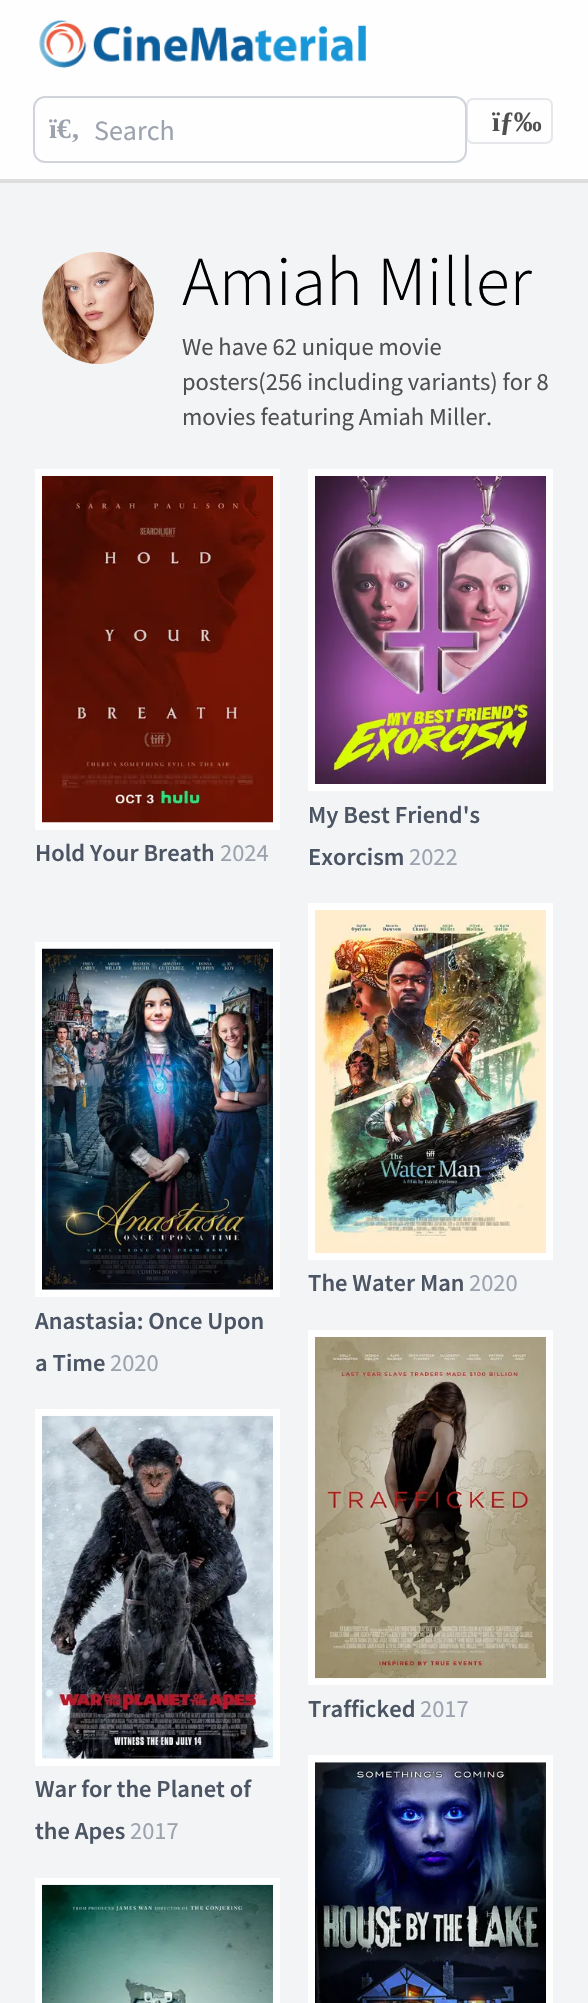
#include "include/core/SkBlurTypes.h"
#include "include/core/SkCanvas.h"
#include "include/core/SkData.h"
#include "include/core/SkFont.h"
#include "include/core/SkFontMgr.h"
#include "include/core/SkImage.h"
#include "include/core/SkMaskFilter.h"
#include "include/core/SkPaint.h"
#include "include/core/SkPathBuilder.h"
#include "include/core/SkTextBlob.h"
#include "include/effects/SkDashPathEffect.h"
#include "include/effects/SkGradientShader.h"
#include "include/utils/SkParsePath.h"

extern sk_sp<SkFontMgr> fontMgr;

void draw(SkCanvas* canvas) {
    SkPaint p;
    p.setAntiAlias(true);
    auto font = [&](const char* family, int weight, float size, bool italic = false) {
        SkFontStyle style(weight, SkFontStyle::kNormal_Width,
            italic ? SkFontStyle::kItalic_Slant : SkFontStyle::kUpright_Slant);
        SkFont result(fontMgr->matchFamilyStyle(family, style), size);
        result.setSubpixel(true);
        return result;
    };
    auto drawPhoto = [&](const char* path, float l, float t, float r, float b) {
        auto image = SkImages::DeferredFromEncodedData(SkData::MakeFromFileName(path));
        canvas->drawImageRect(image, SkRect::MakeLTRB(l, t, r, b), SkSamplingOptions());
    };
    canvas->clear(0xFFF3F4F6);
    p.setColor(0xFFFEFEFF);
    canvas->drawRect(SkRect::MakeLTRB(0, 0, 588, 179), p);
    p.setColor(0xFFDDDDDD);
    canvas->drawRect(SkRect::MakeLTRB(0, 179, 588, 183), p);
    drawPhoto("media/1.png", 39, 20, 366, 68);
    p.setStyle(SkPaint::kStroke_Style);
    p.setStrokeWidth(2);
    p.setColor(0xFFE5E7EB);
    canvas->drawRoundRect(SkRect::MakeLTRB(467, 99, 552, 143), 6, 6, p);
    p.setColor(0xFFD1D5DB);
    canvas->drawRoundRect(SkRect::MakeLTRB(34, 97, 466, 162), 11, 11, p);
    auto font1 = font("Liberation Serif", 700, 28);
    p.setStyle(SkPaint::kFill_Style);
    p.setColor(0xFF9CA3AF);
    canvas->drawString("ï€‚", 49, 138, font1, p);
    auto font2 = font("Source Sans Pro", 400, 28);
    canvas->drawString("Search", 94, 140, font2, p);
    p.setColor(0xFF505050);
    canvas->drawString("ïƒ‰", 492, 131, font1, p);
    drawPhoto("media/2.png", 42, 252, 154, 364);
    auto font3 = font("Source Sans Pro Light", 300, 70);
    p.setColor(0xFF000000);
    canvas->drawString("Amiah Miller", 182, 305, font3, p);
    auto font4 = font("Source Sans Pro", 400, 24.5f);
    p.setColor(0xFF505050);
    {
        const struct { const char* s; float x, y; } items[] = {
            {"We have 62 unique movie", 182, 355},
            {"posters(256 including variants) for 8", 182, 390},
            {"movies featuring Amiah Miller.", 182, 425},
        };
        for (auto [s, x, y] : items) {
            canvas->drawString(s, x, y, font4, p);
        }
    }
    p.setColor(0xFFFFFFFF);
    canvas->drawRect(SkRect::MakeLTRB(35, 469, 280, 830), p);
    drawPhoto("media/3.png", 42, 476, 273, 823);
    auto font5 = font("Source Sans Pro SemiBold", 600, 24.5f);
    p.setColor(0xFF4B5563);
    canvas->drawString("Hold Your Breath", 35, 861, font5, p);
    p.setColor(0xFF9CA3AF);
    canvas->drawString("2024", 220, 861, font4, p);
    p.setColor(0xFFFFFFFF);
    canvas->drawRect(SkRect::MakeLTRB(308, 469, 553, 791), p);
    drawPhoto("media/4.png", 315, 476, 546, 784);
    p.setColor(0xFF4B5563);
    canvas->drawString("My Best Friend's", 308, 823, font5, p);
    canvas->drawString("Exorcism", 308, 865, font5, p);
    p.setColor(0xFF9CA3AF);
    canvas->drawString("2022", 409, 865, font4, p);
    p.setColor(0xFFFFFFFF);
    canvas->drawRect(SkRect::MakeLTRB(308, 903, 553, 1260), p);
    drawPhoto("media/5.png", 315, 910, 546, 1253);
    p.setColor(0xFF4B5563);
    canvas->drawString("The Water Man", 308, 1291, font5, p);
    p.setColor(0xFF9CA3AF);
    canvas->drawString("2020", 469, 1291, font4, p);
    p.setColor(0xFFFFFFFF);
    canvas->drawRect(SkRect::MakeLTRB(35, 942, 280, 1297), p);
    drawPhoto("media/6.png", 42, 948, 273, 1290);
    p.setColor(0xFF4B5563);
    canvas->drawString("Anastasia: Once Upon", 35, 1329, font5, p);
    canvas->drawString("a Time", 35, 1371, font5, p);
    p.setColor(0xFF9CA3AF);
    canvas->drawString("2020", 110, 1371, font4, p);
    p.setColor(0xFFFFFFFF);
    canvas->drawRect(SkRect::MakeLTRB(308, 1330, 553, 1685), p);
    drawPhoto("media/7.png", 315, 1337, 546, 1679);
    p.setColor(0xFF4B5563);
    canvas->drawString("Trafficked", 308, 1717, font5, p);
    p.setColor(0xFF9CA3AF);
    canvas->drawString("2017", 420, 1717, font4, p);
    p.setColor(0xFFFFFFFF);
    canvas->drawRect(SkRect::MakeLTRB(35, 1409, 280, 1766), p);
    drawPhoto("media/8.png", 42, 1415, 273, 1759);
    p.setColor(0xFF4B5563);
    canvas->drawString("War for the Planet of", 35, 1797, font5, p);
    canvas->drawString("the Apes", 35, 1839, font5, p);
    p.setColor(0xFF9CA3AF);
    canvas->drawString("2017", 130, 1839, font4, p);
    p.setColor(0xFFFFFFFF);
    canvas->drawRect(SkRect::MakeLTRB(308, 1755, 553, 2003), p);
    drawPhoto("media/9.png", 315, 1762, 546, 2003);
    canvas->drawRect(SkRect::MakeLTRB(35, 1878, 280, 2003), p);
    drawPhoto("media/10.png", 42, 1884, 273, 2003);
}
